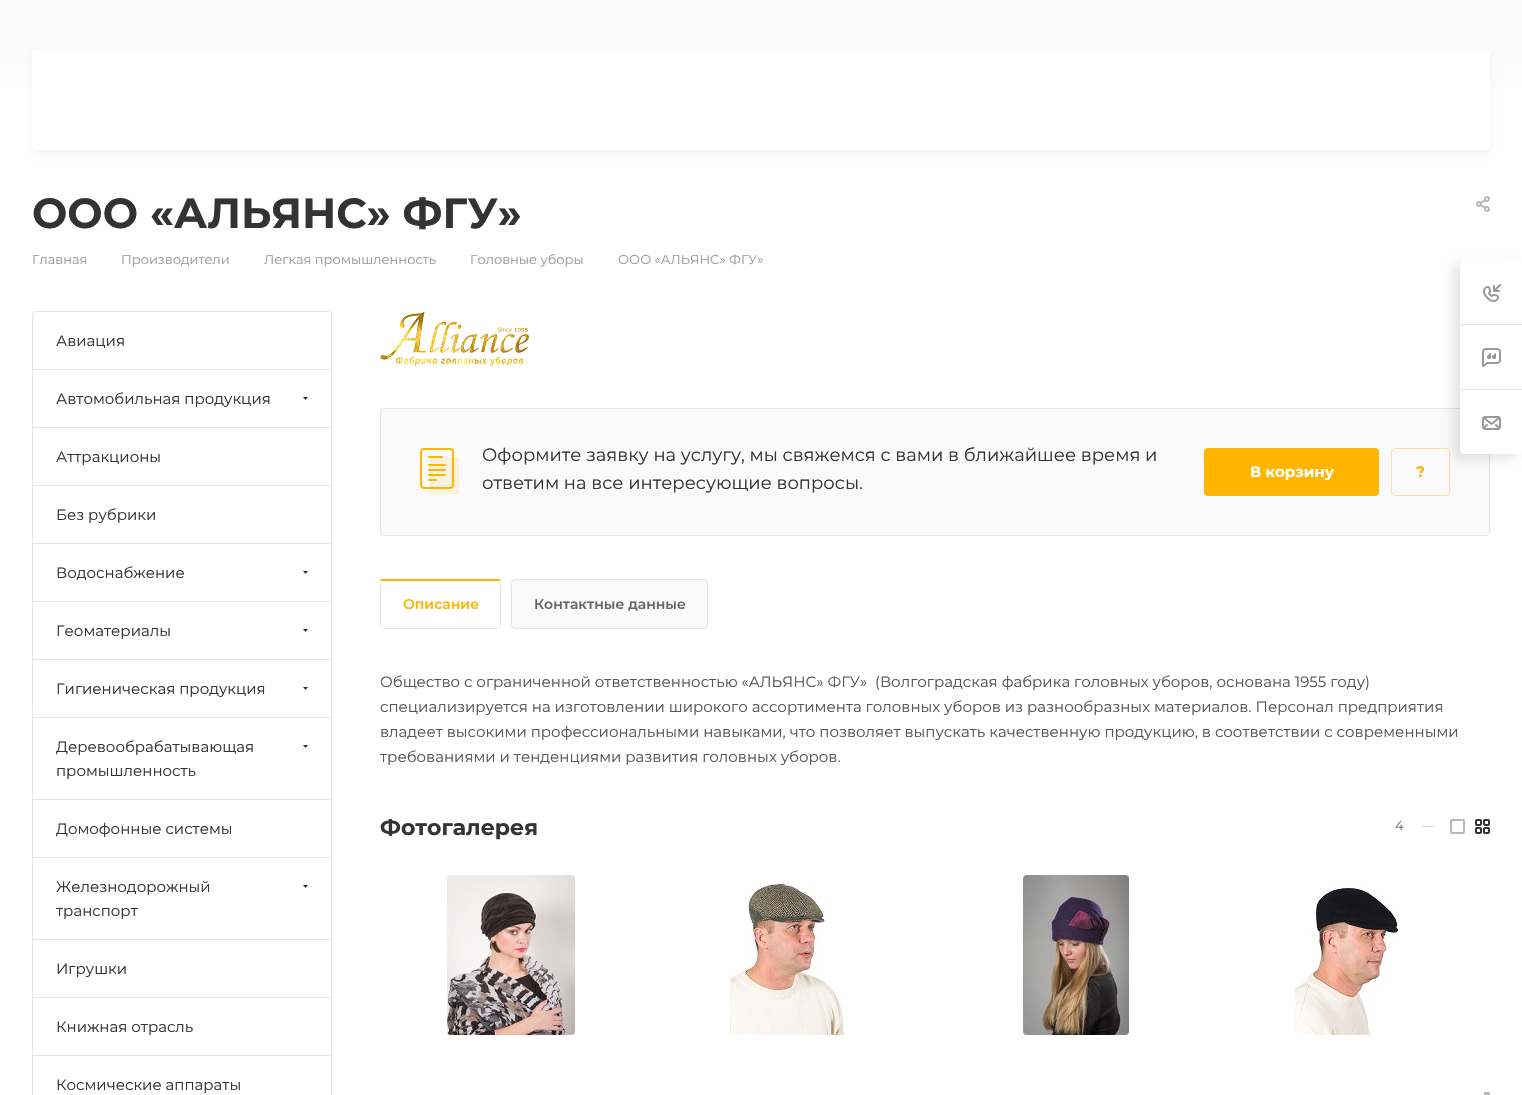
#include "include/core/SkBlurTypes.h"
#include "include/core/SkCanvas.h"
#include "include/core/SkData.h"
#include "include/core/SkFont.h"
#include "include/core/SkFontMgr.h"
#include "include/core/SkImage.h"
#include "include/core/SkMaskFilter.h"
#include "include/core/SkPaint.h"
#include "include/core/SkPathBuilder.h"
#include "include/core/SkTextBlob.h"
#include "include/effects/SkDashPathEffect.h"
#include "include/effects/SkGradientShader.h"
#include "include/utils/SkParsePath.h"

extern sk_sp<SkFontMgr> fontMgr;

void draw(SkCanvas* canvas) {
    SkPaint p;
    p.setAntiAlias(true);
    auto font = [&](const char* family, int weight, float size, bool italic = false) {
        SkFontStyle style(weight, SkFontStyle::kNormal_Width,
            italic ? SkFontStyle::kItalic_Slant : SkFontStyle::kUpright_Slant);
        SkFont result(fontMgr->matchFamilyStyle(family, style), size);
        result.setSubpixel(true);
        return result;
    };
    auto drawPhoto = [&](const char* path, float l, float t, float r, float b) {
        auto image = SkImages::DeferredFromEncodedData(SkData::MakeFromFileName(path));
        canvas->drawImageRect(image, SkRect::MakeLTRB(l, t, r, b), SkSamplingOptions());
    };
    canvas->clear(0xFFFFFFFF);
    {
        const SkColor colors[] = {0xFFF9F9F9, 0xFFFFFFFF};
        const float stops[] = {0, 1};
        const SkPoint ends[] = {{761, 0}, {761, 150}};
        p.setShader(SkGradientShader::MakeLinear(ends, colors, stops, 2, SkTileMode::kClamp));
        p.setAlpha(255);
    }
    canvas->drawRect(SkRect::MakeLTRB(0, 0, 1522, 87), p);
    p.setShader(nullptr);
    p.setColor(0x0D000000);
    p.setMaskFilter(SkMaskFilter::MakeBlur(kNormal_SkBlurStyle, 3.5f));
    canvas->drawRoundRect(SkRect::MakeLTRB(32, 53, 1490, 153), 4, 4, p);
    p.setMaskFilter(nullptr);
    p.setColor(0xFFFFFFFF);
    canvas->drawRoundRect(SkRect::MakeLTRB(32, 50, 1490, 150), 4, 4, p);
    auto font1 = font("Montserrat", 700, 42);
    p.setColor(0xFF333333);
    canvas->drawString("ООО «АЛЬЯНС» ФГУ»", 32, 228, font1, p);
    drawPhoto("media/1.png", 1476, 196, 1490, 212);
    auto font2 = font("Montserrat", 400, 13);
    p.setColor(0xFF999999);
    {
        const struct { const char* s; float x, y; } items[] = {
            {"Главная", 32, 264},
            {"Производители", 121, 264},
            {"Легкая промышленность", 264, 264},
            {"Головные уборы", 470, 264},
            {"ООО «АЛЬЯНС» ФГУ»", 618, 264},
        };
        for (auto [s, x, y] : items) {
            canvas->drawString(s, x, y, font2, p);
        }
    }
    p.setStyle(SkPaint::kStroke_Style);
    p.setStrokeWidth(1);
    p.setColor(0xFFE5E5E5);
    canvas->drawRoundRect(SkRect::MakeLTRB(32.5f, 311.5f, 331.5f, 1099.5f), 3.5f, 3.5f, p);
    auto font3 = font("Montserrat", 400, 15);
    p.setStyle(SkPaint::kFill_Style);
    p.setColor(0xFF333333);
    canvas->drawString("Авиация", 56, 346, font3, p);
    p.setColor(0xFFE5E5E5);
    canvas->drawRect(SkRect::MakeLTRB(33, 369, 331, 370), p);
    p.setColor(0xFF333333);
    canvas->drawString("Автомобильная продукция", 56, 404, font3, p);
    canvas->drawPath(SkPathBuilder(SkPathFillType::kEvenOdd).moveTo(303, 397).lineTo(308, 397).lineTo(305.5f, 400).close().detach(), p);
    p.setColor(0xFFE5E5E5);
    canvas->drawRect(SkRect::MakeLTRB(33, 427, 331, 428), p);
    p.setColor(0xFF333333);
    canvas->drawString("Аттракционы", 56, 462, font3, p);
    p.setColor(0xFFE5E5E5);
    canvas->drawRect(SkRect::MakeLTRB(33, 485, 331, 486), p);
    p.setColor(0xFF333333);
    canvas->drawString("Без рубрики", 56, 520, font3, p);
    p.setColor(0xFFE5E5E5);
    canvas->drawRect(SkRect::MakeLTRB(33, 543, 331, 544), p);
    p.setColor(0xFF333333);
    canvas->drawString("Водоснабжение", 56, 578, font3, p);
    canvas->drawPath(SkPathBuilder(SkPathFillType::kEvenOdd).moveTo(303, 571).lineTo(308, 571).lineTo(305.5f, 574).close().detach(), p);
    p.setColor(0xFFE5E5E5);
    canvas->drawRect(SkRect::MakeLTRB(33, 601, 331, 602), p);
    p.setColor(0xFF333333);
    canvas->drawString("Геоматериалы", 56, 636, font3, p);
    canvas->drawPath(SkPathBuilder(SkPathFillType::kEvenOdd).moveTo(303, 629).lineTo(308, 629).lineTo(305.5f, 632).close().detach(), p);
    p.setColor(0xFFE5E5E5);
    canvas->drawRect(SkRect::MakeLTRB(33, 659, 331, 660), p);
    p.setColor(0xFF333333);
    canvas->drawString("Гигиеническая продукция", 56, 694, font3, p);
    canvas->drawPath(SkPathBuilder(SkPathFillType::kEvenOdd).moveTo(303, 687).lineTo(308, 687).lineTo(305.5f, 690).close().detach(), p);
    p.setColor(0xFFE5E5E5);
    canvas->drawRect(SkRect::MakeLTRB(33, 717, 331, 718), p);
    p.setColor(0xFF333333);
    canvas->drawString("Деревообрабатывающая", 56, 752, font3, p);
    canvas->drawPath(SkPathBuilder(SkPathFillType::kEvenOdd).moveTo(303, 745).lineTo(308, 745).lineTo(305.5f, 748).close().detach(), p);
    canvas->drawString("промышленность", 56, 776, font3, p);
    p.setColor(0xFFE5E5E5);
    canvas->drawRect(SkRect::MakeLTRB(33, 799, 331, 800), p);
    p.setColor(0xFF333333);
    canvas->drawString("Домофонные системы", 56, 834, font3, p);
    p.setColor(0xFFE5E5E5);
    canvas->drawRect(SkRect::MakeLTRB(33, 857, 331, 858), p);
    p.setColor(0xFF333333);
    canvas->drawString("Железнодорожный", 56, 892, font3, p);
    canvas->drawPath(SkPathBuilder(SkPathFillType::kEvenOdd).moveTo(303, 885).lineTo(308, 885).lineTo(305.5f, 888).close().detach(), p);
    canvas->drawString("транспорт", 56, 916, font3, p);
    p.setColor(0xFFE5E5E5);
    canvas->drawRect(SkRect::MakeLTRB(33, 939, 331, 940), p);
    p.setColor(0xFF333333);
    canvas->drawString("Игрушки", 56, 974, font3, p);
    p.setColor(0xFFE5E5E5);
    canvas->drawRect(SkRect::MakeLTRB(33, 997, 331, 998), p);
    p.setColor(0xFF333333);
    canvas->drawString("Книжная отрасль", 56, 1032, font3, p);
    p.setColor(0xFFE5E5E5);
    canvas->drawRect(SkRect::MakeLTRB(33, 1055, 331, 1056), p);
    p.setColor(0xFF333333);
    canvas->drawString("Космические аппараты", 56, 1090, font3, p);
    drawPhoto("media/2.png", 380, 311, 529, 366);
    p.setColor(0xFFFAFAFA);
    canvas->drawRoundRect(SkRect::MakeLTRB(380.5f, 408.5f, 1489.5f, 535.5f), 3.5f, 3.5f, p);
    p.setStyle(SkPaint::kStroke_Style);
    p.setColor(0xFFE5E5E5);
    canvas->drawRoundRect(SkRect::MakeLTRB(380.5f, 408.5f, 1489.5f, 535.5f), 3.5f, 3.5f, p);
    drawPhoto("media/3.png", 420, 448, 459, 494);
    auto font4 = font("Montserrat", 400, 18);
    p.setStyle(SkPaint::kFill_Style);
    p.setColor(0xFF333333);
    canvas->drawString("Оформите заявку на услугу, мы свяжемся с вами в ближайшее время и", 482, 461, font4, p);
    canvas->drawString("ответим на все интересующие вопросы.", 482, 489, font4, p);
    p.setColor(0xFFFFB400);
    canvas->drawRoundRect(SkRect::MakeLTRB(1204.5f, 448.5f, 1378.5f, 495.5f), 3.5f, 3.5f, p);
    p.setStyle(SkPaint::kStroke_Style);
    canvas->drawRoundRect(SkRect::MakeLTRB(1204.5f, 448.5f, 1378.5f, 495.5f), 3.5f, 3.5f, p);
    auto font5 = font("Montserrat", 700, 15);
    p.setStyle(SkPaint::kFill_Style);
    p.setColor(0xFFFFFFFF);
    canvas->drawString("В корзину", 1250, 477, font5, p);
    p.setStyle(SkPaint::kStroke_Style);
    p.setColor(0xFFFCE1A3);
    canvas->drawRoundRect(SkRect::MakeLTRB(1391.5f, 448.5f, 1449.5f, 495.5f), 3.5f, 3.5f, p);
    p.setStyle(SkPaint::kFill_Style);
    p.setColor(0xFFFFB400);
    canvas->drawString("?", 1416, 477, font5, p);
    p.setStyle(SkPaint::kStroke_Style);
    p.setColor(0xFFE5E5E5);
    canvas->drawRoundRect(SkRect::MakeLTRB(380.5f, 579.5f, 500.5f, 628.5f), 3.5f, 3.5f, p);
    p.setStyle(SkPaint::kFill_Style);
    p.setColor(0xFFFFFFFF);
    canvas->drawRoundRect(SkRect::MakeLTRB(381, 580, 500, 628), 3, 3, p);
    p.setColor(0xFFFFB400);
    canvas->drawPath(SkPathBuilder().moveTo(382, 579).lineTo(499, 579).cubicTo(500, 579, 501, 580, 501, 581).lineTo(380, 581).cubicTo(380, 580, 381, 579, 382, 579).close().detach(), p);
    auto font6 = font("Montserrat", 600, 14);
    canvas->drawString("Описание", 403, 609, font6, p);
    p.setColor(0xFFFAFAFA);
    canvas->drawRoundRect(SkRect::MakeLTRB(511.5f, 579.5f, 707.5f, 628.5f), 3.5f, 3.5f, p);
    p.setStyle(SkPaint::kStroke_Style);
    p.setColor(0xFFE5E5E5);
    canvas->drawRoundRect(SkRect::MakeLTRB(511.5f, 579.5f, 707.5f, 628.5f), 3.5f, 3.5f, p);
    p.setStyle(SkPaint::kFill_Style);
    p.setColor(0xFF666666);
    canvas->drawString("Контактные данные", 534, 609, font6, p);
    p.setColor(0xFF555555);
    {
        const struct { const char* s; float x, y; } items[] = {
            {"Общество с ограниченной ответственностью «АЛЬЯНС» ФГУ»  (Волгоградская фабрика головных уборов, основана 1955 году)", 380, 687},
            {"специализируется на изготовлении широкого ассортимента головных уборов из разнообразных материалов. Персонал предприятия", 380, 712},
            {"владеет высокими профессиональными навыками, что позволяет выпускать качественную продукцию, в соответствии с современными", 380, 737},
            {"требованиями и тенденциями развития головных уборов.", 380, 762},
        };
        for (auto [s, x, y] : items) {
            canvas->drawString(s, x, y, font3, p);
        }
    }
    auto font7 = font("Montserrat", 700, 22);
    p.setColor(0xFF333333);
    canvas->drawString("Фотогалерея", 380, 835, font7, p);
    p.setColor(0xFF666666);
    canvas->drawString("4", 1395, 830, font2, p);
    p.setColor(0xFFCECECE);
    canvas->drawString("—", 1422, 830, font2, p);
    drawPhoto("media/4.png", 1450, 819, 1465, 834);
    drawPhoto("media/5.png", 1475, 819, 1490, 834);
    drawPhoto("media/6.png", 447, 875, 575, 1035);
    drawPhoto("media/7.png", 730, 877, 845, 1035);
    drawPhoto("media/8.png", 1023, 875, 1129, 1035);
    drawPhoto("media/9.png", 1295, 885, 1398, 1035);
    p.setColor(0xFFB8B8B8);
    canvas->drawRect(SkRect::MakeLTRB(1484, 1092, 1490, 1095), p);
    p.setColor(0x1A000000);
    p.setMaskFilter(SkMaskFilter::MakeBlur(kNormal_SkBlurStyle, 5.5f));
    canvas->drawRoundRect(SkRect::MakeLTRB(1453, 265, 1516, 459), 4, 4, p);
    p.setMaskFilter(nullptr);
    p.setColor(0xFFFFFFFF);
    canvas->drawPath(SkPathBuilder().moveTo(1464, 260).lineTo(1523, 260).lineTo(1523, 454).lineTo(1464, 454).cubicTo(1462, 454, 1460, 452, 1460, 450).lineTo(1460, 264).cubicTo(1460, 262, 1462, 260, 1464, 260).close().detach(), p);
    drawPhoto("media/10.png", 1483, 284, 1501, 302);
    p.setColor(0xFFE5E5E5);
    canvas->drawRect(SkRect::MakeLTRB(1460, 324, 1522, 325), p);
    drawPhoto("media/11.png", 1482, 348, 1501, 367);
    canvas->drawRect(SkRect::MakeLTRB(1460, 389, 1522, 390), p);
    drawPhoto("media/12.png", 1482, 416, 1501, 430);
}
